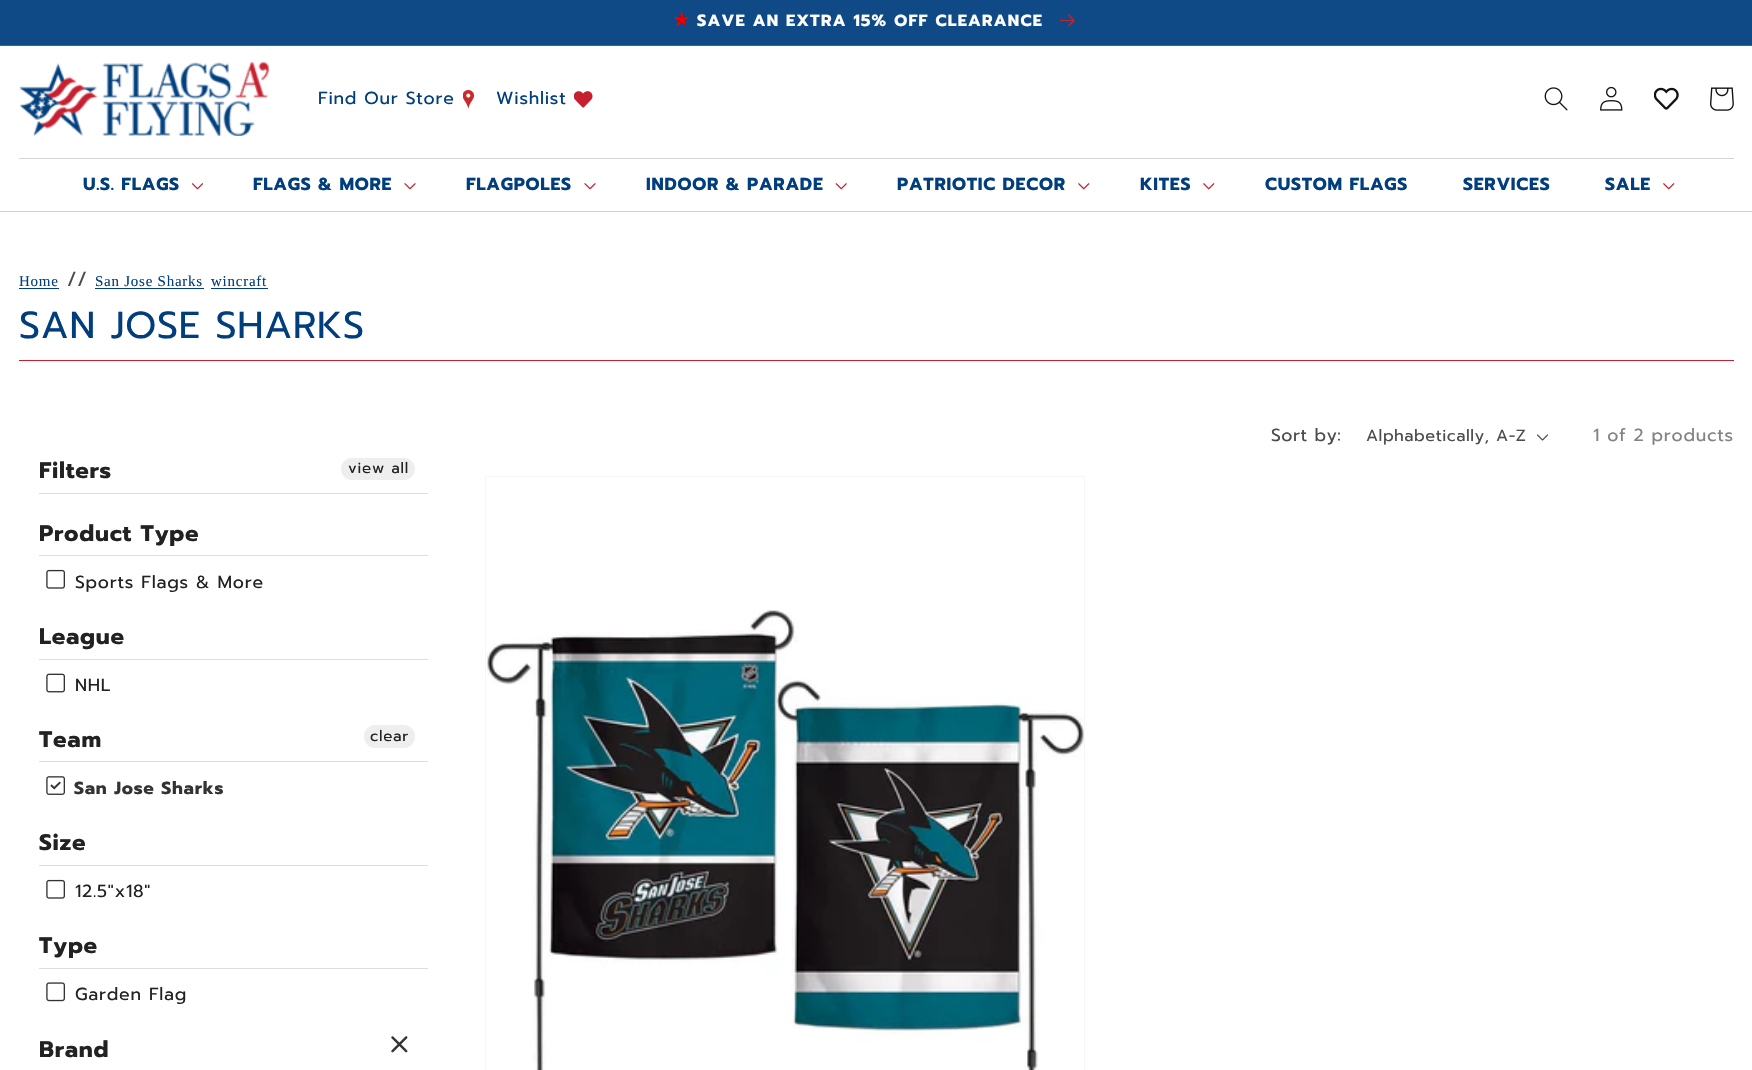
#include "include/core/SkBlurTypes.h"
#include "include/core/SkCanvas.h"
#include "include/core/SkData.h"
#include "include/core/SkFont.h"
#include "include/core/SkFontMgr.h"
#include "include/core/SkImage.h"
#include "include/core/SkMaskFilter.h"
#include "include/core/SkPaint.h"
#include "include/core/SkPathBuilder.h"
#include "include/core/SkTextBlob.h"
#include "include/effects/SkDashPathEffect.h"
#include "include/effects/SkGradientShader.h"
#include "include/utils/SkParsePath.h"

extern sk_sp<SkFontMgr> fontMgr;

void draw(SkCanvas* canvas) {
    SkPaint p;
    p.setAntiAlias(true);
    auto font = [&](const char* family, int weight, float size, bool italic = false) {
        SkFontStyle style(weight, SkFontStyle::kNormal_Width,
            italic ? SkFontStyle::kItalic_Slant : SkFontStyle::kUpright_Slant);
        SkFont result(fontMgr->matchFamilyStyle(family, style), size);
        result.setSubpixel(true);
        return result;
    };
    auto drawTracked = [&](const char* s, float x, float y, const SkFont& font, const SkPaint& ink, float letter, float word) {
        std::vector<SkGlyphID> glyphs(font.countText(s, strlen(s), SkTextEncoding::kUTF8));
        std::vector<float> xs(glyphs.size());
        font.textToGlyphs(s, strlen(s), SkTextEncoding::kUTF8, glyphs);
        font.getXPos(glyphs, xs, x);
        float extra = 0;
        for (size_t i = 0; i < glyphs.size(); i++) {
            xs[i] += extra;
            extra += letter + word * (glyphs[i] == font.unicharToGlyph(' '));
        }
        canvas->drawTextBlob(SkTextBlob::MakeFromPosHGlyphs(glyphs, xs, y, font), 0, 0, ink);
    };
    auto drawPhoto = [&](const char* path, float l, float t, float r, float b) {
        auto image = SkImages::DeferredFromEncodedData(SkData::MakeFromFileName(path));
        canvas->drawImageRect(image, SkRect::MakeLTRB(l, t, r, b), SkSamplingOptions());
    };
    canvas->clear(0xFFFFFFFF);
    p.setColor(0xFF336598);
    canvas->drawRect(SkRect::MakeLTRB(0, 45, 1752, 46), p);
    p.setColor(0xFF0F4A86);
    canvas->drawRect(SkRect::MakeLTRB(0, 0, 1752, 45), p);
    drawPhoto("media/1.png", 674, 11, 690, 26);
    auto font1 = font("Prompt", 700, 16.25f);
    p.setColor(0xFFFFFFFF);
    drawTracked("SAVE AN EXTRA 15% OFF CLEARANCE", 697, 26, font1, p, 1.25f, 0);
    drawPhoto("media/2.png", 1060, 14, 1075, 27);
    p.setColor(0xFFD0D0D0);
    canvas->drawRect(SkRect::MakeLTRB(0, 211, 1752, 212), p);
    drawPhoto("media/3.png", 19, 62, 269, 136);
    auto font2 = font("Prompt", 400, 17.5f);
    p.setColor(0xFF003E7E);
    drawTracked("Find Our Store", 318, 104, font2, p, 0.75f, 0);
    drawPhoto("media/4.png", 463, 90, 474, 109);
    drawTracked("Wishlist", 496, 104, font2, p, 0.75f, 0);
    drawPhoto("media/5.png", 574, 91, 593, 108);
    drawPhoto("media/6.png", 1544, 87, 1568, 111);
    drawPhoto("media/7.png", 1600, 86, 1623, 111);
    drawPhoto("media/8.png", 1654, 87, 1679, 110);
    drawPhoto("media/9.png", 1710, 87, 1734, 111);
    p.setColor(0xFFD5D5D5);
    canvas->drawRect(SkRect::MakeLTRB(19, 158, 1734, 159), p);
    auto font3 = font("Prompt", 700, 17.5f);
    p.setColor(0xFF003E7E);
    drawTracked("U.S. FLAGS", 83, 190, font3, p, 0.75f, 0);
    drawPhoto("media/10.png", 191, 183, 204, 190);
    drawTracked("FLAGS & MORE", 253, 190, font3, p, 0.75f, 0);
    drawPhoto("media/11.png", 404, 183, 416, 190);
    drawTracked("FLAGPOLES", 466, 190, font3, p, 0.75f, 0);
    drawPhoto("media/11.png", 584, 183, 596, 190);
    drawTracked("INDOOR & PARADE", 646, 190, font3, p, 0.75f, 0);
    drawPhoto("media/12.png", 835, 183, 847, 190);
    drawTracked("PATRIOTIC DECOR", 897, 190, font3, p, 0.75f, 0);
    drawPhoto("media/13.png", 1078, 183, 1090, 190);
    drawTracked("KITES", 1140, 190, font3, p, 0.75f, 0);
    drawPhoto("media/13.png", 1203, 183, 1215, 190);
    {
        const struct { const char* s; float x, y; } items[] = {
            {"CUSTOM FLAGS", 1265, 190},
            {"SERVICES", 1463, 190},
            {"SALE", 1605, 190},
        };
        for (auto [s, x, y] : items) {
            drawTracked(s, x, y, font3, p, 0.75f, 0);
        }
    }
    drawPhoto("media/13.png", 1663, 183, 1675, 190);
    auto font4 = font("Liberation Serif", 400, 15);
    drawTracked("Home", 19, 286, font4, p, 0.75f, 0);
    canvas->drawRect(SkRect::MakeLTRB(19, 288, 59, 289), p);
    auto font5 = font("Prompt", 400, 20);
    p.setColor(0xFF4D4D4D);
    drawTracked("//", 67, 286, font5, p, 0.75f, 0);
    p.setColor(0xFF003E7E);
    drawTracked("San Jose Sharks", 95, 286, font4, p, 0.75f, 0);
    canvas->drawRect(SkRect::MakeLTRB(95, 288, 204, 289), p);
    drawTracked("wincraft", 211, 286, font4, p, 0.75f, 0);
    canvas->drawRect(SkRect::MakeLTRB(211, 288, 268, 289), p);
    p.setColor(0xFFC6202E);
    canvas->drawRect(SkRect::MakeLTRB(19, 360, 1734, 361), p);
    auto font6 = font("Prompt", 400, 37.5f);
    p.setColor(0xFF003E7E);
    drawTracked("SAN JOSE SHARKS", 19, 338, font6, p, 0.75f, 0);
    p.setColor(0xFF4D4D4D);
    drawTracked("Sort by:", 1271, 441, font2, p, 0.5f, 0);
    auto font7 = font("Prompt", 400, 16.25f);
    drawTracked("Alphabetically, A-Z", 1366, 441, font7, p, 0.5f, 0);
    drawPhoto("media/14.png", 1537, 434, 1548, 441);
    p.setColor(0xFF838383);
    drawTracked("1 of 2 products", 1593, 441, font2, p, 0.75f, 0);
    p.setColor(0xFFDDDDDD);
    canvas->drawRect(SkRect::MakeLTRB(39, 493, 428, 494), p);
    auto font8 = font("Prompt", 700, 22.5f);
    p.setColor(0xFF222222);
    drawTracked("Filters", 39, 478, font8, p, 0.75f, 0);
    p.setColor(0xFFEEEEEE);
    canvas->drawRoundRect(SkRect::MakeLTRB(341, 458, 415, 480), 11, 11, p);
    auto font9 = font("Prompt", 400, 15);
    p.setColor(0xFF222222);
    drawTracked("view all", 348, 473, font9, p, 0.75f, 0);
    p.setColor(0xFFDDDDDD);
    canvas->drawRect(SkRect::MakeLTRB(39, 555, 428, 556), p);
    p.setColor(0xFF222222);
    drawTracked("Product Type", 39, 541, font8, p, 0.75f, 0);
    drawPhoto("media/15.png", 46, 569, 65, 589);
    drawTracked("Sports Flags & More", 75, 588, font2, p, 0.75f, 0);
    p.setColor(0xFFDDDDDD);
    canvas->drawRect(SkRect::MakeLTRB(39, 659, 428, 660), p);
    p.setColor(0xFF222222);
    drawTracked("League", 39, 644, font8, p, 0.75f, 0);
    drawPhoto("media/16.png", 46, 673, 65, 693);
    drawTracked("NHL", 75, 691, font2, p, 0.75f, 0);
    p.setColor(0xFFDDDDDD);
    canvas->drawRect(SkRect::MakeLTRB(39, 761, 428, 762), p);
    p.setColor(0xFF222222);
    drawTracked("Team", 39, 747, font8, p, 0.75f, 0);
    p.setColor(0xFFEEEEEE);
    canvas->drawRoundRect(SkRect::MakeLTRB(364, 725, 415, 748), 11.5f, 11.5f, p);
    p.setColor(0xFF222222);
    drawTracked("clear", 370, 741, font9, p, 0.75f, 0);
    drawPhoto("media/17.png", 46, 776, 65, 795);
    p.setColor(0xFF333333);
    drawTracked("San Jose Sharks", 74, 794, font3, p, 0.75f, 0);
    p.setColor(0xFFDDDDDD);
    canvas->drawRect(SkRect::MakeLTRB(39, 865, 428, 866), p);
    p.setColor(0xFF222222);
    drawTracked("Size", 39, 850, font8, p, 0.75f, 0);
    drawPhoto("media/15.png", 46, 879, 65, 899);
    drawTracked("12.5\"x18\"", 75, 897, font2, p, 0.75f, 0);
    p.setColor(0xFFDDDDDD);
    canvas->drawRect(SkRect::MakeLTRB(39, 968, 428, 969), p);
    p.setColor(0xFF222222);
    drawTracked("Type", 39, 953, font8, p, 0.75f, 0);
    drawPhoto("media/18.png", 46, 982, 65, 1002);
    drawTracked("Garden Flag", 75, 1000, font2, p, 0.75f, 0);
    drawTracked("Brand", 39, 1057, font8, p, 0.75f, 0);
    drawPhoto("media/19.png", 391, 1036, 408, 1053);
    p.setStyle(SkPaint::kStroke_Style);
    p.setStrokeWidth(1);
    p.setColor(0xFFF6F6F6);
    canvas->drawRect(SkRect::MakeLTRB(485.5f, 476.5f, 1084.5f, 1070.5f), p);
    drawPhoto("media/20.png", 487, 610, 1084, 1070);
}
